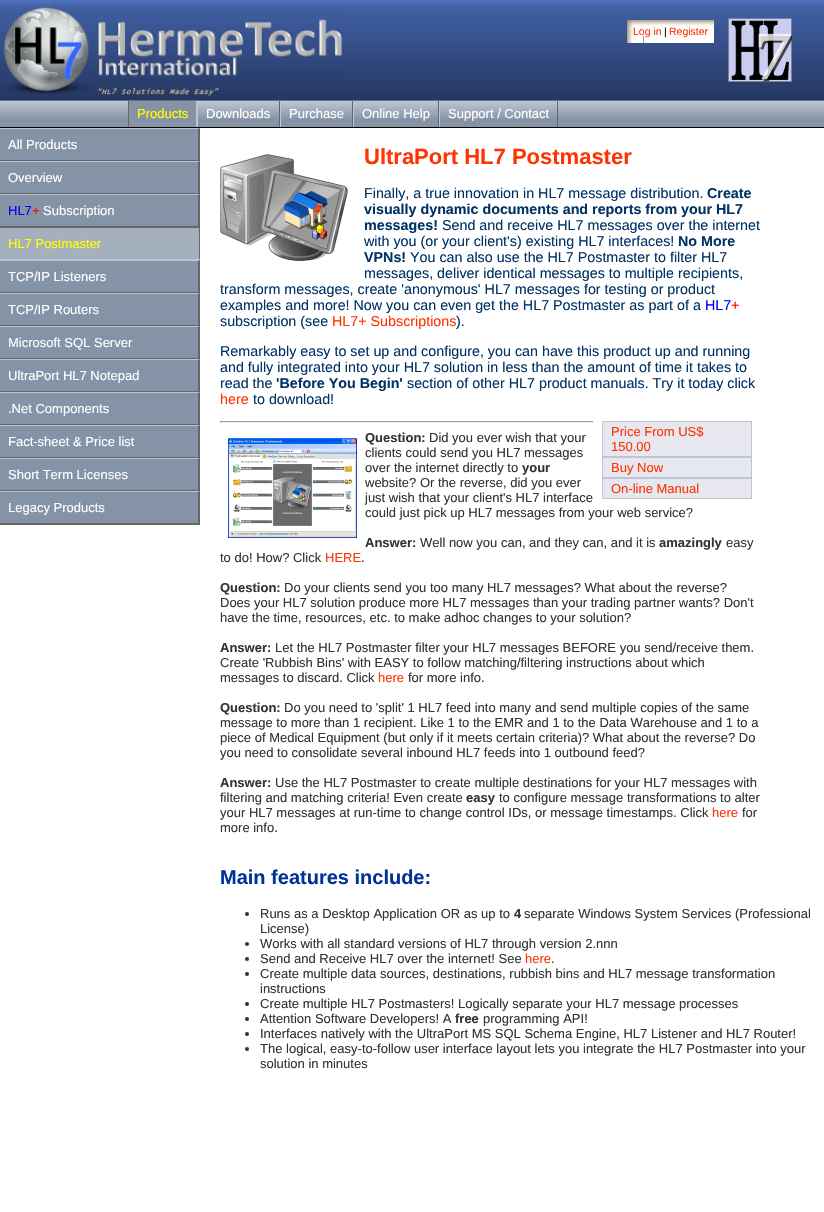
#include "include/core/SkBlurTypes.h"
#include "include/core/SkCanvas.h"
#include "include/core/SkData.h"
#include "include/core/SkFont.h"
#include "include/core/SkFontMgr.h"
#include "include/core/SkImage.h"
#include "include/core/SkMaskFilter.h"
#include "include/core/SkPaint.h"
#include "include/core/SkPathBuilder.h"
#include "include/core/SkTextBlob.h"
#include "include/effects/SkDashPathEffect.h"
#include "include/effects/SkGradientShader.h"
#include "include/utils/SkParsePath.h"

extern sk_sp<SkFontMgr> fontMgr;

void draw(SkCanvas* canvas) {
    SkPaint p;
    p.setAntiAlias(true);
    auto font = [&](const char* family, int weight, float size, bool italic = false) {
        SkFontStyle style(weight, SkFontStyle::kNormal_Width,
            italic ? SkFontStyle::kItalic_Slant : SkFontStyle::kUpright_Slant);
        SkFont result(fontMgr->matchFamilyStyle(family, style), size);
        result.setSubpixel(true);
        return result;
    };
    auto drawPhoto = [&](const char* path, float l, float t, float r, float b) {
        auto image = SkImages::DeferredFromEncodedData(SkData::MakeFromFileName(path));
        canvas->drawImageRect(image, SkRect::MakeLTRB(l, t, r, b), SkSamplingOptions());
    };
    canvas->clear(0xFFFFFFFF);
    drawPhoto("media/1.png", 0, 0, 824, 100);
    drawPhoto("media/2.png", 4, 7, 343, 96);
    p.setColor(0xFFFFFFFF);
    canvas->drawRect(SkRect::MakeLTRB(644, 36, 714, 43), p);
    drawPhoto("media/3.png", 627, 36, 644, 43);
    drawPhoto("media/4.png", 635, 20, 714, 36);
    drawPhoto("media/5.png", 627, 20, 635, 36);
    auto font1 = font("Liberation Sans", 400, 10.5f);
    p.setColor(0xFFFF3300);
    canvas->drawString("Log in", 633, 35, font1, p);
    p.setColor(0xFF000000);
    canvas->drawString("|", 664, 35, font1, p);
    p.setColor(0xFFFF3300);
    canvas->drawString("Register", 669, 35, font1, p);
    drawPhoto("media/6.png", 728, 18, 792, 82);
    p.setColor(0xFF8593A6);
    canvas->drawRect(SkRect::MakeLTRB(0, 119, 824, 127), p);
    drawPhoto("media/7.png", 0, 101, 824, 119);
    {
        const struct { float l, t, r, b; SkColor color; } items[] = {
            {0, 100, 824, 101, 0xFF626F82},
            {0, 127, 824, 128, 0xFF000000},
            {129, 101, 196, 119, 0xFF8593A6},
            {196, 101, 198, 127, 0xFFBEC6D3},
            {128, 101, 129, 127, 0xFF666666},
        };
        for (auto [l, t, r, b, color] : items) {
            p.setColor(color);
            canvas->drawRect(SkRect::MakeLTRB(l, t, r, b), p);
        }
    }
    auto font2 = font("Liberation Sans", 400, 13);
    p.setColor(0xFFFFFF00);
    canvas->drawString("Products", 137, 118, font2, p);
    p.setColor(0xFF666666);
    canvas->drawRect(SkRect::MakeLTRB(279, 101, 280, 127), p);
    p.setColor(0xFFFFFFFF);
    canvas->drawString("Downloads", 206, 118, font2, p);
    p.setColor(0xFF666666);
    canvas->drawRect(SkRect::MakeLTRB(352, 101, 353, 127), p);
    p.setColor(0xFFBEC6D3);
    canvas->drawRect(SkRect::MakeLTRB(280, 101, 281, 127), p);
    p.setColor(0xFFFFFFFF);
    canvas->drawString("Purchase", 289, 118, font2, p);
    p.setColor(0xFF666666);
    canvas->drawRect(SkRect::MakeLTRB(438, 101, 439, 127), p);
    p.setColor(0xFFBEC6D3);
    canvas->drawRect(SkRect::MakeLTRB(353, 101, 354, 127), p);
    p.setColor(0xFFFFFFFF);
    canvas->drawString("Online Help", 362, 118, font2, p);
    p.setColor(0xFF666666);
    canvas->drawRect(SkRect::MakeLTRB(557, 101, 558, 127), p);
    p.setColor(0xFFBEC6D3);
    canvas->drawRect(SkRect::MakeLTRB(439, 101, 440, 127), p);
    p.setColor(0xFFFFFFFF);
    canvas->drawString("Support / Contact", 448, 118, font2, p);
    p.setColor(0xFF8593A6);
    canvas->drawRect(SkRect::MakeLTRB(0, 128, 200, 523), p);
    p.setColor(0xFF666666);
    canvas->drawRect(SkRect::MakeLTRB(0, 524, 200, 525), p);
    p.setColor(0xFFBEC6D3);
    canvas->drawPath(SkPathBuilder().moveTo(0, 128).lineTo(200, 128).lineTo(198, 129).lineTo(0, 129).close().detach(), p);
    p.setColor(0xFF666666);
    canvas->drawPath(SkPathBuilder().moveTo(200, 128).lineTo(200, 161).lineTo(198, 160).lineTo(198, 129).close().detach(), p);
    canvas->drawRect(SkRect::MakeLTRB(0, 160, 200, 161), p);
    p.setColor(0xFFFFFFFF);
    canvas->drawString("All Products", 8, 149, font2, p);
    p.setColor(0xFFBEC6D3);
    canvas->drawPath(SkPathBuilder().moveTo(0, 161).lineTo(200, 161).lineTo(198, 162).lineTo(0, 162).close().detach(), p);
    p.setColor(0xFF666666);
    canvas->drawPath(SkPathBuilder().moveTo(200, 161).lineTo(200, 194).lineTo(198, 193).lineTo(198, 162).close().detach(), p);
    canvas->drawRect(SkRect::MakeLTRB(0, 193, 200, 194), p);
    p.setColor(0xFFFFFFFF);
    canvas->drawString("Overview", 8, 182, font2, p);
    p.setColor(0xFFBEC6D3);
    canvas->drawPath(SkPathBuilder().moveTo(0, 194).lineTo(200, 194).lineTo(198, 195).lineTo(0, 195).close().detach(), p);
    p.setColor(0xFF666666);
    canvas->drawPath(SkPathBuilder().moveTo(200, 194).lineTo(200, 227).lineTo(198, 226).lineTo(198, 195).close().detach(), p);
    canvas->drawRect(SkRect::MakeLTRB(0, 226, 200, 228), p);
    p.setColor(0xFF0000FF);
    canvas->drawString("HL7", 8, 215, font2, p);
    p.setColor(0xFFFF0000);
    canvas->drawString("+", 32, 215, font2, p);
    p.setColor(0xFFFFFFFF);
    canvas->drawString("Subscription", 43, 215, font2, p);
    {
        const struct { float l, t, r, b; SkColor color; } items[] = {
            {0, 228, 199, 259, 0xFFA4B0BE},
            {199, 227, 200, 260, 0xFF666666},
            {0, 259, 200, 260, 0xFFBEC6D3},
        };
        for (auto [l, t, r, b, color] : items) {
            p.setColor(color);
            canvas->drawRect(SkRect::MakeLTRB(l, t, r, b), p);
        }
    }
    p.setColor(0xFFFFFF00);
    canvas->drawString("HL7 Postmaster", 8, 248, font2, p);
    p.setColor(0xFFBEC6D3);
    canvas->drawPath(SkPathBuilder().moveTo(0, 260).lineTo(200, 260).lineTo(198, 261).lineTo(0, 261).close().detach(), p);
    p.setColor(0xFF666666);
    canvas->drawPath(SkPathBuilder().moveTo(200, 260).lineTo(200, 293).lineTo(198, 292).lineTo(198, 261).close().detach(), p);
    canvas->drawRect(SkRect::MakeLTRB(0, 292, 200, 293), p);
    p.setColor(0xFFFFFFFF);
    canvas->drawString("TCP/IP Listeners", 8, 281, font2, p);
    p.setColor(0xFFBEC6D3);
    canvas->drawPath(SkPathBuilder().moveTo(0, 293).lineTo(200, 293).lineTo(198, 294).lineTo(0, 294).close().detach(), p);
    p.setColor(0xFF666666);
    canvas->drawPath(SkPathBuilder().moveTo(200, 293).lineTo(200, 326).lineTo(198, 325).lineTo(198, 294).close().detach(), p);
    canvas->drawRect(SkRect::MakeLTRB(0, 325, 200, 326), p);
    p.setColor(0xFFFFFFFF);
    canvas->drawString("TCP/IP Routers", 8, 314, font2, p);
    p.setColor(0xFFBEC6D3);
    canvas->drawPath(SkPathBuilder().moveTo(0, 326).lineTo(200, 326).lineTo(198, 327).lineTo(0, 327).close().detach(), p);
    p.setColor(0xFF666666);
    canvas->drawPath(SkPathBuilder().moveTo(200, 326).lineTo(200, 359).lineTo(198, 358).lineTo(198, 327).close().detach(), p);
    canvas->drawRect(SkRect::MakeLTRB(0, 358, 200, 359), p);
    p.setColor(0xFFFFFFFF);
    canvas->drawString("Microsoft SQL Server", 8, 347, font2, p);
    p.setColor(0xFFBEC6D3);
    canvas->drawPath(SkPathBuilder().moveTo(0, 359).lineTo(200, 359).lineTo(198, 360).lineTo(0, 360).close().detach(), p);
    p.setColor(0xFF666666);
    canvas->drawPath(SkPathBuilder().moveTo(200, 359).lineTo(200, 392).lineTo(198, 391).lineTo(198, 360).close().detach(), p);
    canvas->drawRect(SkRect::MakeLTRB(0, 391, 200, 392), p);
    p.setColor(0xFFFFFFFF);
    canvas->drawString("UltraPort HL7 Notepad", 8, 380, font2, p);
    p.setColor(0xFFBEC6D3);
    canvas->drawPath(SkPathBuilder().moveTo(0, 392).lineTo(200, 392).lineTo(198, 393).lineTo(0, 393).close().detach(), p);
    p.setColor(0xFF666666);
    canvas->drawPath(SkPathBuilder().moveTo(200, 392).lineTo(200, 425).lineTo(198, 424).lineTo(198, 393).close().detach(), p);
    canvas->drawRect(SkRect::MakeLTRB(0, 424, 200, 425), p);
    p.setColor(0xFFFFFFFF);
    canvas->drawString(".Net Components", 8, 413, font2, p);
    p.setColor(0xFFBEC6D3);
    canvas->drawPath(SkPathBuilder().moveTo(0, 425).lineTo(200, 425).lineTo(198, 426).lineTo(0, 426).close().detach(), p);
    p.setColor(0xFF666666);
    canvas->drawPath(SkPathBuilder().moveTo(200, 425).lineTo(200, 458).lineTo(198, 457).lineTo(198, 426).close().detach(), p);
    canvas->drawRect(SkRect::MakeLTRB(0, 457, 200, 458), p);
    p.setColor(0xFFFFFFFF);
    canvas->drawString("Fact-sheet & Price list", 8, 446, font2, p);
    p.setColor(0xFFBEC6D3);
    canvas->drawPath(SkPathBuilder().moveTo(0, 458).lineTo(200, 458).lineTo(198, 459).lineTo(0, 459).close().detach(), p);
    p.setColor(0xFF666666);
    canvas->drawPath(SkPathBuilder().moveTo(200, 458).lineTo(200, 491).lineTo(198, 490).lineTo(198, 459).close().detach(), p);
    canvas->drawRect(SkRect::MakeLTRB(0, 490, 200, 491), p);
    p.setColor(0xFFFFFFFF);
    canvas->drawString("Short Term Licenses", 8, 479, font2, p);
    p.setColor(0xFFBEC6D3);
    canvas->drawPath(SkPathBuilder().moveTo(0, 491).lineTo(200, 491).lineTo(198, 492).lineTo(0, 492).close().detach(), p);
    p.setColor(0xFF666666);
    canvas->drawPath(SkPathBuilder().moveTo(200, 491).lineTo(200, 524).lineTo(198, 523).lineTo(198, 492).close().detach(), p);
    canvas->drawRect(SkRect::MakeLTRB(0, 523, 200, 524), p);
    p.setColor(0xFFFFFFFF);
    canvas->drawString("Legacy Products", 8, 512, font2, p);
    drawPhoto("media/8.png", 220, 154, 348, 262);
    auto font3 = font("Liberation Sans", 700, 22);
    p.setColor(0xFFFF3300);
    canvas->drawString("UltraPort HL7 Postmaster", 364, 164, font3, p);
    auto font4 = font("Liberation Sans", 400, 14.3f);
    p.setColor(0xFF003366);
    canvas->drawString("Finally, a true innovation in HL7 message distribution.", 364, 198, font4, p);
    auto font5 = font("Liberation Sans", 700, 14.3f);
    {
        const struct { const char* s; float x, y; } items[] = {
            {"Create", 707, 198},
            {"visually dynamic documents and reports from your HL7", 364, 214},
            {"messages!", 364, 230},
        };
        for (auto [s, x, y] : items) {
            canvas->drawString(s, x, y, font5, p);
        }
    }
    canvas->drawString("Send and receive HL7 messages over the internet", 442, 230, font4, p);
    canvas->drawString("with you (or your client's) existing HL7 interfaces!", 364, 246, font4, p);
    canvas->drawString("No More", 678, 246, font5, p);
    canvas->drawString("VPNs!", 364, 262, font5, p);
    {
        const struct { const char* s; float x, y; } items[] = {
            {"You can also use the HL7 Postmaster to filter HL7", 410, 262},
            {"messages, deliver identical messages to multiple recipients,", 364, 278},
            {"transform messages, create 'anonymous' HL7 messages for testing or product", 220, 294},
            {"examples and more! Now you can even get the HL7 Postmaster as part of a", 220, 310},
        };
        for (auto [s, x, y] : items) {
            canvas->drawString(s, x, y, font4, p);
        }
    }
    p.setColor(0xFF0000FF);
    canvas->drawString("HL7", 705, 310, font4, p);
    p.setColor(0xFFFF0000);
    canvas->drawString("+", 731, 310, font4, p);
    p.setColor(0xFF003366);
    canvas->drawString("subscription (see", 220, 326, font4, p);
    p.setColor(0xFFFF3300);
    canvas->drawString("HL7+ Subscriptions", 332, 326, font4, p);
    p.setColor(0xFF003366);
    {
        const struct { const char* s; float x, y; } items[] = {
            {").", 456, 326},
            {"Remarkably easy to set up and configure, you can have this product up and running", 220, 356},
            {"and fully integrated into your HL7 solution in less than the amount of time it takes to", 220, 372},
            {"read the", 220, 388},
        };
        for (auto [s, x, y] : items) {
            canvas->drawString(s, x, y, font4, p);
        }
    }
    canvas->drawString("'Before You Begin'", 276, 388, font5, p);
    canvas->drawString("section of other HL7 product manuals. Try it today click", 407, 388, font4, p);
    p.setColor(0xFFFF3300);
    canvas->drawString("here", 220, 404, font4, p);
    p.setColor(0xFF003366);
    canvas->drawString("to download!", 253, 404, font4, p);
    {
        const struct { float l, t, r, b; SkColor color; } items[] = {
            {220, 421, 594, 422, 0xFF9F9F9F},
            {593, 421, 594, 423, 0xFFEEEEEE},
            {220, 422, 594, 423, 0xFFEEEEEE},
            {220, 421, 221, 423, 0xFF9F9F9F},
            {603, 422, 751, 498, 0xFFE7E7EF},
        };
        for (auto [l, t, r, b, color] : items) {
            p.setColor(color);
            canvas->drawRect(SkRect::MakeLTRB(l, t, r, b), p);
        }
    }
    p.setStyle(SkPaint::kStroke_Style);
    p.setStrokeWidth(1);
    p.setColor(0xFFBEC6D3);
    canvas->drawRect(SkRect::MakeLTRB(602.5f, 421.5f, 751.5f, 456.5f), p);
    p.setStyle(SkPaint::kFill_Style);
    p.setColor(0xFFFF3300);
    canvas->drawString("Price From US$", 611, 436, font2, p);
    canvas->drawString("150.00", 611, 451, font2, p);
    p.setStyle(SkPaint::kStroke_Style);
    p.setColor(0xFFBEC6D3);
    canvas->drawRect(SkRect::MakeLTRB(602.5f, 457.5f, 751.5f, 477.5f), p);
    p.setStyle(SkPaint::kFill_Style);
    p.setColor(0xFFFF3300);
    canvas->drawString("Buy Now", 611, 472, font2, p);
    p.setStyle(SkPaint::kStroke_Style);
    p.setColor(0xFFBEC6D3);
    canvas->drawRect(SkRect::MakeLTRB(602.5f, 478.5f, 751.5f, 498.5f), p);
    p.setStyle(SkPaint::kFill_Style);
    p.setColor(0xFFFF3300);
    canvas->drawString("On-line Manual", 611, 493, font2, p);
    drawPhoto("media/9.png", 228, 438, 357, 538);
    auto font6 = font("Liberation Sans", 700, 13);
    p.setColor(0xFF333333);
    canvas->drawString("Question:", 365, 442, font6, p);
    {
        const struct { const char* s; float x, y; } items[] = {
            {"Did you ever wish that your", 429, 442},
            {"clients could send you HL7 messages", 365, 457},
            {"over the internet directly to", 365, 472},
        };
        for (auto [s, x, y] : items) {
            canvas->drawString(s, x, y, font2, p);
        }
    }
    canvas->drawString("your", 522, 472, font6, p);
    {
        const struct { const char* s; float x, y; } items[] = {
            {"website? Or the reverse, did you ever", 365, 487},
            {"just wish that your client's HL7 interface", 365, 502},
            {"could just pick up HL7 messages from your web service?", 365, 517},
        };
        for (auto [s, x, y] : items) {
            canvas->drawString(s, x, y, font2, p);
        }
    }
    canvas->drawString("Answer:", 365, 547, font6, p);
    canvas->drawString("Well now you can, and they can, and it is", 420, 547, font2, p);
    canvas->drawString("amazingly", 659, 547, font6, p);
    canvas->drawString("easy", 726, 547, font2, p);
    canvas->drawString("to do! How? Click", 220, 562, font2, p);
    p.setColor(0xFFFF3300);
    canvas->drawString("HERE", 325, 562, font2, p);
    p.setColor(0xFF333333);
    canvas->drawString(".", 361, 562, font2, p);
    canvas->drawString("Question:", 220, 592, font6, p);
    {
        const struct { const char* s; float x, y; } items[] = {
            {"Do your clients send you too many HL7 messages? What about the reverse?", 284, 592},
            {"Does your HL7 solution produce more HL7 messages than your trading partner wants? Don't", 220, 607},
            {"have the time, resources, etc. to make adhoc changes to your solution?", 220, 622},
        };
        for (auto [s, x, y] : items) {
            canvas->drawString(s, x, y, font2, p);
        }
    }
    canvas->drawString("Answer:", 220, 652, font6, p);
    {
        const struct { const char* s; float x, y; } items[] = {
            {"Let the HL7 Postmaster filter your HL7 messages BEFORE you send/receive them.", 275, 652},
            {"Create 'Rubbish Bins' with EASY to follow matching/filtering instructions about which", 220, 667},
            {"messages to discard. Click", 220, 682},
        };
        for (auto [s, x, y] : items) {
            canvas->drawString(s, x, y, font2, p);
        }
    }
    p.setColor(0xFFFF3300);
    canvas->drawString("here", 378, 682, font2, p);
    p.setColor(0xFF333333);
    canvas->drawString("for more info.", 408, 682, font2, p);
    canvas->drawString("Question:", 220, 712, font6, p);
    {
        const struct { const char* s; float x, y; } items[] = {
            {"Do you need to 'split' 1 HL7 feed into many and send multiple copies of the same", 284, 712},
            {"message to more than 1 recipient. Like 1 to the EMR and 1 to the Data Warehouse and 1 to a", 220, 727},
            {"piece of Medical Equipment (but only if it meets certain criteria)? What about the reverse? Do", 220, 742},
            {"you need to consolidate several inbound HL7 feeds into 1 outbound feed?", 220, 757},
        };
        for (auto [s, x, y] : items) {
            canvas->drawString(s, x, y, font2, p);
        }
    }
    canvas->drawString("Answer:", 220, 787, font6, p);
    canvas->drawString("Use the HL7 Postmaster to create multiple destinations for your HL7 messages with", 275, 787, font2, p);
    canvas->drawString("filtering and matching criteria! Even create", 220, 802, font2, p);
    canvas->drawString("easy", 466, 802, font6, p);
    canvas->drawString("to configure message transformations to alter", 499, 802, font2, p);
    canvas->drawString("your HL7 messages at run-time to change control IDs, or message timestamps. Click", 220, 817, font2, p);
    p.setColor(0xFFFF3300);
    canvas->drawString("here", 712, 817, font2, p);
    p.setColor(0xFF333333);
    canvas->drawString("for", 742, 817, font2, p);
    canvas->drawString("more info.", 220, 832, font2, p);
    auto font7 = font("Liberation Sans", 700, 20);
    p.setColor(0xFF003399);
    canvas->drawString("Main features include:", 220, 884, font7, p);
    p.setColor(0xFF333333);
    canvas->drawCircle(247, 914, 2, p);
    canvas->drawString("Runs as a Desktop Application OR as up to", 260, 918, font2, p);
    canvas->drawString("4", 514, 918, font6, p);
    canvas->drawString("separate Windows System Services (Professional", 524, 918, font2, p);
    canvas->drawString("License)", 260, 933, font2, p);
    canvas->drawCircle(247, 944, 2, p);
    canvas->drawString("Works with all standard versions of HL7 through version 2.nnn", 260, 948, font2, p);
    canvas->drawCircle(247, 959, 2, p);
    canvas->drawString("Send and Receive HL7 over the internet! See", 260, 963, font2, p);
    p.setColor(0xFFFF3300);
    canvas->drawString("here", 525, 963, font2, p);
    p.setColor(0xFF333333);
    canvas->drawString(".", 551, 963, font2, p);
    canvas->drawCircle(247, 974, 2, p);
    canvas->drawString("Create multiple data sources, destinations, rubbish bins and HL7 message transformation", 260, 978, font2, p);
    canvas->drawString("instructions", 260, 993, font2, p);
    canvas->drawCircle(247, 1004, 2, p);
    canvas->drawString("Create multiple HL7 Postmasters! Logically separate your HL7 message processes", 260, 1008, font2, p);
    canvas->drawCircle(247, 1019, 2, p);
    canvas->drawString("Attention Software Developers! A", 260, 1023, font2, p);
    canvas->drawString("free", 455, 1023, font6, p);
    canvas->drawString("programming API!", 483, 1023, font2, p);
    canvas->drawCircle(247, 1034, 2, p);
    canvas->drawString("Interfaces natively with the UltraPort MS SQL Schema Engine, HL7 Listener and HL7 Router!", 260, 1038, font2, p);
    canvas->drawCircle(247, 1049, 2, p);
    canvas->drawString("The logical, easy-to-follow user interface layout lets you integrate the HL7 Postmaster into your", 260, 1053, font2, p);
    canvas->drawString("solution in minutes", 260, 1068, font2, p);
}
